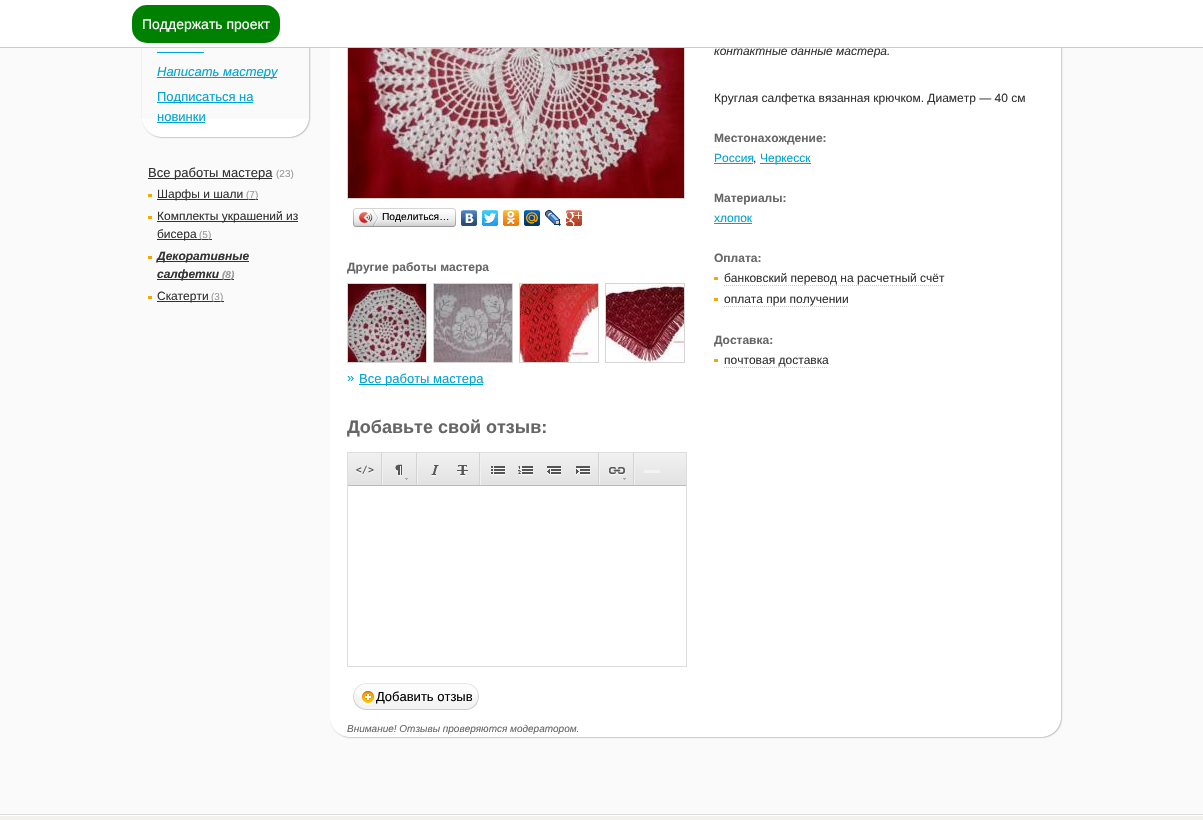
#include "include/core/SkBlurTypes.h"
#include "include/core/SkCanvas.h"
#include "include/core/SkData.h"
#include "include/core/SkFont.h"
#include "include/core/SkFontMgr.h"
#include "include/core/SkImage.h"
#include "include/core/SkMaskFilter.h"
#include "include/core/SkPaint.h"
#include "include/core/SkPathBuilder.h"
#include "include/core/SkTextBlob.h"
#include "include/effects/SkDashPathEffect.h"
#include "include/effects/SkGradientShader.h"
#include "include/utils/SkParsePath.h"

extern sk_sp<SkFontMgr> fontMgr;

void draw(SkCanvas* canvas) {
    SkPaint p;
    p.setAntiAlias(true);
    auto font = [&](const char* family, int weight, float size, bool italic = false) {
        SkFontStyle style(weight, SkFontStyle::kNormal_Width,
            italic ? SkFontStyle::kItalic_Slant : SkFontStyle::kUpright_Slant);
        SkFont result(fontMgr->matchFamilyStyle(family, style), size);
        result.setSubpixel(true);
        return result;
    };
    auto drawPhoto = [&](const char* path, float l, float t, float r, float b) {
        auto image = SkImages::DeferredFromEncodedData(SkData::MakeFromFileName(path));
        canvas->drawImageRect(image, SkRect::MakeLTRB(l, t, r, b), SkSamplingOptions());
    };
    canvas->clear(0xFFFAFAFA);
    p.setColor(0xFFFFFFFF);
    canvas->drawRect(SkRect::MakeLTRB(330, 48, 1043, 719), p);
    p.setStyle(SkPaint::kStroke_Style);
    p.setStrokeWidth(1);
    p.setColor(0xFFD5D5D5);
    canvas->drawRect(SkRect::MakeLTRB(347.5f, -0.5f, 684.5f, 198.5f), p);
    auto font1 = font("Liberation Sans", 400, 12, true);
    p.setStyle(SkPaint::kFill_Style);
    p.setColor(0xFF333333);
    canvas->drawString("контактные данные мастера.", 714, 55, font1, p);
    p.setColor(0xFFFFFFFF);
    canvas->drawRect(SkRect::MakeLTRB(0, 0, 1203, 47), p);
    p.setColor(0xFFCCCCCC);
    canvas->drawRect(SkRect::MakeLTRB(0, 47, 1203, 48), p);
    p.setColor(0xFF008000);
    canvas->drawRoundRect(SkRect::MakeLTRB(132, 5, 280, 43), 15, 15, p);
    auto font2 = font("Liberation Sans", 400, 14);
    p.setColor(0xFFFFFFFF);
    canvas->drawString("Поддержать проект", 142, 29, font2, p);
    {
        const struct { float l, t, r, b; SkColor color; } items[] = {
            {141, 48, 142, 119, 0xFFF1F1F2},
            {157, 52, 204, 53, 0xFF00A3D2},
            {157, 77, 277, 78, 0xFF00A3D2},
        };
        for (auto [l, t, r, b, color] : items) {
            p.setColor(color);
            canvas->drawRect(SkRect::MakeLTRB(l, t, r, b), p);
        }
    }
    auto font3 = font("Liberation Sans", 400, 13, true);
    canvas->drawString("Написать мастеру", 157, 76, font3, p);
    canvas->drawRect(SkRect::MakeLTRB(157, 102, 253, 103), p);
    auto font4 = font("Liberation Sans", 400, 13);
    canvas->drawString("Подписаться на", 157, 101, font4, p);
    drawPhoto("media/2.png", 142, 119, 291, 139);
    canvas->drawString("новинки", 157, 121, font4, p);
    canvas->drawRect(SkRect::MakeLTRB(157, 122, 205, 123), p);
    drawPhoto("media/1.png", 309, 48, 311, 119);
    drawPhoto("media/3.png", 291, 119, 311, 139);
    p.setColor(0xFF333333);
    canvas->drawRect(SkRect::MakeLTRB(148, 178, 272, 179), p);
    canvas->drawString("Все работы мастера", 148, 177, font4, p);
    auto font5 = font("Liberation Sans", 400, 10);
    p.setColor(0xFF999999);
    canvas->drawString("(23)", 276, 177, font5, p);
    p.setColor(0xFFF6A800);
    canvas->drawRect(SkRect::MakeLTRB(148, 194, 152, 197), p);
    p.setColor(0xFF333333);
    canvas->drawRect(SkRect::MakeLTRB(157, 199, 258, 200), p);
    auto font6 = font("Liberation Sans", 400, 12);
    canvas->drawString("Шарфы и шали", 157, 198, font6, p);
    p.setColor(0xFF999999);
    canvas->drawString("(7)", 246, 198, font5, p);
    p.setColor(0xFFF6A800);
    canvas->drawRect(SkRect::MakeLTRB(148, 216, 152, 219), p);
    p.setColor(0xFF333333);
    canvas->drawRect(SkRect::MakeLTRB(157, 221, 298, 222), p);
    canvas->drawString("Комплекты украшений из", 157, 220, font6, p);
    canvas->drawRect(SkRect::MakeLTRB(157, 239, 212, 240), p);
    canvas->drawString("бисера", 157, 238, font6, p);
    p.setColor(0xFF999999);
    canvas->drawString("(5)", 199, 238, font5, p);
    p.setColor(0xFFF6A800);
    canvas->drawRect(SkRect::MakeLTRB(148, 256, 152, 259), p);
    p.setColor(0xFF333333);
    canvas->drawRect(SkRect::MakeLTRB(157, 261, 249, 262), p);
    auto font7 = font("Liberation Sans", 700, 12, true);
    canvas->drawString("Декоративные", 157, 260, font7, p);
    canvas->drawRect(SkRect::MakeLTRB(157, 279, 234, 280), p);
    canvas->drawString("салфетки", 157, 278, font7, p);
    auto font8 = font("Liberation Sans", 700, 10, true);
    p.setColor(0xFF999999);
    canvas->drawString("(8)", 222, 278, font8, p);
    p.setColor(0xFFF6A800);
    canvas->drawRect(SkRect::MakeLTRB(148, 296, 152, 299), p);
    p.setColor(0xFF333333);
    canvas->drawRect(SkRect::MakeLTRB(157, 301, 224, 302), p);
    canvas->drawString("Скатерти", 157, 300, font6, p);
    p.setColor(0xFF999999);
    canvas->drawString("(3)", 211, 300, font5, p);
    drawPhoto("media/4.png", 348, 48, 684, 198);
    drawPhoto("media/5.png", 356, 208, 453, 227);
    drawPhoto("media/6.png", 353, 208, 356, 227);
    drawPhoto("media/7.png", 359, 209, 379, 226);
    auto font9 = font("Liberation Sans", 400, 10.25f);
    p.setColor(0xFF000000);
    canvas->drawString("Поделиться…", 382, 220, font9, p);
    drawPhoto("media/8.png", 453, 208, 456, 227);
    drawPhoto("media/9.png", 461, 210, 477, 226);
    drawPhoto("media/10.png", 482, 210, 498, 226);
    drawPhoto("media/11.png", 503, 210, 519, 226);
    drawPhoto("media/12.png", 524, 210, 540, 226);
    drawPhoto("media/13.png", 545, 210, 561, 226);
    drawPhoto("media/14.png", 566, 210, 582, 226);
    auto font10 = font("Liberation Sans", 700, 12);
    p.setColor(0xFF666666);
    canvas->drawString("Другие работы мастера", 347, 271, font10, p);
    p.setStyle(SkPaint::kStroke_Style);
    p.setColor(0xFFD5D5D5);
    canvas->drawRect(SkRect::MakeLTRB(347.5f, 283.5f, 426.5f, 362.5f), p);
    drawPhoto("media/15.png", 348, 284, 426, 362);
    canvas->drawRect(SkRect::MakeLTRB(433.5f, 283.5f, 512.5f, 362.5f), p);
    drawPhoto("media/16.png", 434, 284, 512, 362);
    canvas->drawRect(SkRect::MakeLTRB(519.5f, 283.5f, 598.5f, 362.5f), p);
    drawPhoto("media/17.png", 520, 284, 598, 362);
    canvas->drawRect(SkRect::MakeLTRB(605.5f, 283.5f, 684.5f, 362.5f), p);
    drawPhoto("media/18.png", 606, 284, 684, 362);
    p.setStyle(SkPaint::kFill_Style);
    p.setColor(0xFF00A3D2);
    canvas->drawString("»", 347, 382, font4, p);
    canvas->drawRect(SkRect::MakeLTRB(359, 384, 483, 385), p);
    canvas->drawString("Все работы мастера", 359, 383, font4, p);
    auto font11 = font("Liberation Sans", 700, 18);
    p.setColor(0xFF666666);
    canvas->drawString("Добавьте свой отзыв:", 347, 433, font11, p);
    p.setStyle(SkPaint::kStroke_Style);
    p.setColor(0xFFDDDDDD);
    canvas->drawRect(SkRect::MakeLTRB(347.5f, 452.5f, 686.5f, 666.5f), p);
    p.setStyle(SkPaint::kFill_Style);
    {
        const SkColor colors[] = {0xFFF1F1F1, 0xFFE2E2E2};
        const float stops[] = {0, 1};
        const SkPoint ends[] = {{517, 453}, {517, 485}};
        p.setShader(SkGradientShader::MakeLinear(ends, colors, stops, 2, SkTileMode::kClamp));
        p.setAlpha(255);
    }
    canvas->drawRect(SkRect::MakeLTRB(348, 453, 686, 485), p);
    p.setShader(nullptr);
    p.setColor(0xFFBBBBBB);
    canvas->drawRect(SkRect::MakeLTRB(348, 485, 686, 486), p);
    drawPhoto("media/19.png", 356, 465, 374, 475);
    p.setColor(0xFFF1F1F1);
    canvas->drawRect(SkRect::MakeLTRB(382, 453, 383, 485), p);
    p.setColor(0xFFD3D3D3);
    canvas->drawRect(SkRect::MakeLTRB(381, 453, 382, 485), p);
    drawPhoto("media/20.png", 395, 464, 408, 480);
    p.setColor(0xFFF1F1F1);
    canvas->drawRect(SkRect::MakeLTRB(417, 453, 418, 485), p);
    p.setColor(0xFFD3D3D3);
    canvas->drawRect(SkRect::MakeLTRB(416, 453, 417, 485), p);
    drawPhoto("media/21.png", 431, 465, 439, 477);
    drawPhoto("media/22.png", 457, 465, 468, 477);
    p.setColor(0xFFF1F1F1);
    canvas->drawRect(SkRect::MakeLTRB(480, 453, 481, 485), p);
    p.setColor(0xFFD3D3D3);
    canvas->drawRect(SkRect::MakeLTRB(479, 453, 480, 485), p);
    drawPhoto("media/23.png", 490, 466, 506, 476);
    drawPhoto("media/24.png", 518, 466, 534, 476);
    drawPhoto("media/25.png", 547, 466, 562, 476);
    drawPhoto("media/26.png", 575, 466, 591, 476);
    p.setColor(0xFFF1F1F1);
    canvas->drawRect(SkRect::MakeLTRB(599, 453, 600, 485), p);
    p.setColor(0xFFD3D3D3);
    canvas->drawRect(SkRect::MakeLTRB(598, 453, 599, 485), p);
    drawPhoto("media/27.png", 608, 467, 626, 480);
    {
        const struct { float l, t, r, b; SkColor color; } items[] = {
            {634, 453, 635, 485, 0xFFF1F1F1},
            {633, 453, 634, 485, 0xFFD3D3D3},
            {644, 470, 660, 473, 0xFFF4F4F4},
        };
        for (auto [l, t, r, b, color] : items) {
            p.setColor(color);
            canvas->drawRect(SkRect::MakeLTRB(l, t, r, b), p);
        }
    }
    drawPhoto("media/28.png", 353, 683, 479, 710);
    p.setColor(0xFF000000);
    canvas->drawString("Добавить отзыв", 376, 701, font4, p);
    drawPhoto("media/30.png", 330, 719, 1043, 739);
    auto font12 = font("Liberation Sans", 400, 10, true);
    p.setColor(0xFF666666);
    canvas->drawString("Внимание! Отзывы проверяются модератором.", 347, 732, font12, p);
    p.setColor(0xFF333333);
    canvas->drawString("Круглая салфетка вязанная крючком. Диаметр — 40 см", 714, 102, font6, p);
    p.setColor(0xFF666666);
    canvas->drawString("Местонахождение:", 714, 142, font10, p);
    p.setColor(0xFF00A3D2);
    canvas->drawString("Россия", 714, 162, font6, p);
    canvas->drawRect(SkRect::MakeLTRB(714, 163, 753, 164), p);
    p.setColor(0xFF333333);
    canvas->drawString(",", 753, 162, font6, p);
    p.setColor(0xFF00A3D2);
    canvas->drawRect(SkRect::MakeLTRB(760, 163, 811, 164), p);
    canvas->drawString("Черкесск", 760, 162, font6, p);
    p.setColor(0xFF666666);
    canvas->drawString("Материалы:", 714, 202, font10, p);
    p.setColor(0xFF00A3D2);
    canvas->drawString("хлопок", 714, 222, font6, p);
    canvas->drawRect(SkRect::MakeLTRB(714, 223, 752, 224), p);
    p.setColor(0xFF666666);
    canvas->drawString("Оплата:", 714, 262, font10, p);
    p.setColor(0xFFF6A800);
    canvas->drawRect(SkRect::MakeLTRB(714, 277, 718, 280), p);
    p.setColor(0xFF333333);
    canvas->drawString("банковский перевод на расчетный счёт", 724, 282, font6, p);
    p.setStyle(SkPaint::kStroke_Style);
    p.setColor(0xFFCCCCCC);
    p.setPathEffect(SkDashPathEffect::Make({{1, 1}}, 0));
    canvas->drawPath(SkPathBuilder().moveTo(724, 285.5f).lineTo(944, 285.5f).detach(), p);
    p.setPathEffect(nullptr);
    p.setStyle(SkPaint::kFill_Style);
    p.setColor(0xFFF6A800);
    canvas->drawRect(SkRect::MakeLTRB(714, 298, 718, 301), p);
    p.setColor(0xFF333333);
    canvas->drawString("оплата при получении", 724, 303, font6, p);
    p.setStyle(SkPaint::kStroke_Style);
    p.setColor(0xFFCCCCCC);
    p.setPathEffect(SkDashPathEffect::Make({{1, 1}}, 0));
    canvas->drawPath(SkPathBuilder().moveTo(724, 306.5f).lineTo(848, 306.5f).detach(), p);
    p.setPathEffect(nullptr);
    p.setStyle(SkPaint::kFill_Style);
    p.setColor(0xFF666666);
    canvas->drawString("Доставка:", 714, 344, font10, p);
    p.setColor(0xFFF6A800);
    canvas->drawRect(SkRect::MakeLTRB(714, 359, 718, 362), p);
    p.setColor(0xFF333333);
    canvas->drawString("почтовая доставка", 724, 364, font6, p);
    p.setStyle(SkPaint::kStroke_Style);
    p.setColor(0xFFCCCCCC);
    p.setPathEffect(SkDashPathEffect::Make({{1, 1}}, 0));
    canvas->drawPath(SkPathBuilder().moveTo(724, 367.5f).lineTo(828, 367.5f).detach(), p);
    p.setPathEffect(nullptr);
    drawPhoto("media/29.png", 1043, 48, 1063, 719);
    drawPhoto("media/3.png", 1043, 719, 1063, 739);
    p.setStyle(SkPaint::kFill_Style);
    p.setColor(0xFFF2F1EE);
    canvas->drawRect(SkRect::MakeLTRB(0, 816, 1203, 820), p);
    drawPhoto("media/31.png", 0, 814, 1203, 816);
}
